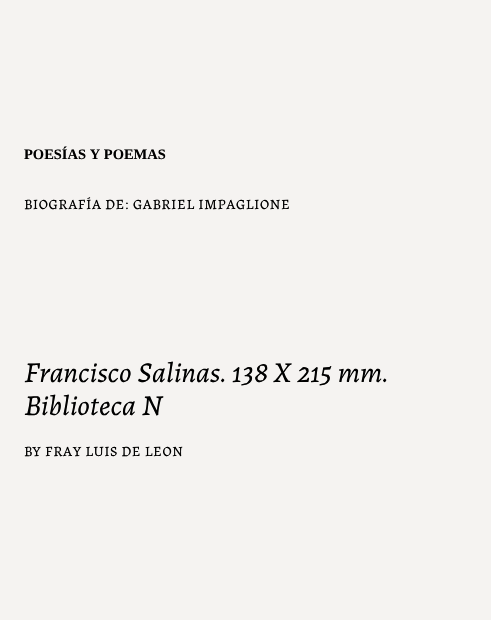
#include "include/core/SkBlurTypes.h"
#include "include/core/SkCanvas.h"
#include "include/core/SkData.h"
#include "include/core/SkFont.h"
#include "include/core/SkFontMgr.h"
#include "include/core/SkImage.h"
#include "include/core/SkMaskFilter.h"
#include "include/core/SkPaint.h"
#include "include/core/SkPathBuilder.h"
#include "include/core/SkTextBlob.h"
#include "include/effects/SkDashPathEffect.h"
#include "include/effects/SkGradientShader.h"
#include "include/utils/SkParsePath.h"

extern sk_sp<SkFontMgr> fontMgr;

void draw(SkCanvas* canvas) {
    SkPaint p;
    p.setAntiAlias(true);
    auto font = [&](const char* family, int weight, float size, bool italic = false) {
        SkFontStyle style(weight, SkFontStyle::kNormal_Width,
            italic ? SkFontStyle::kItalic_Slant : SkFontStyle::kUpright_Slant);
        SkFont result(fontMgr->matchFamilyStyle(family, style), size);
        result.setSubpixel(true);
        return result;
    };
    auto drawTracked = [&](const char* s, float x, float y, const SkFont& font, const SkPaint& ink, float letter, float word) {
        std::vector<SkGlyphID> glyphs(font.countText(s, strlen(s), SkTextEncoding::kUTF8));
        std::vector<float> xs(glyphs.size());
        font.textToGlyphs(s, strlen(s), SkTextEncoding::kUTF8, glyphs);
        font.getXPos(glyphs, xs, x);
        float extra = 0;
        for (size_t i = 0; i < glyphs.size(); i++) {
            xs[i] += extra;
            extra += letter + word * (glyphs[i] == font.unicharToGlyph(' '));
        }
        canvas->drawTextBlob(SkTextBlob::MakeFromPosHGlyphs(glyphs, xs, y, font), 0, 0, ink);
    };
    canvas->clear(0xFFF5F3F1);
    auto font1 = font("Liberation Serif", 700, 14.5f);
    p.setColor(0xFF000000);
    canvas->drawString("POESÍAS Y POEMAS", 24, 159, font1, p);
    auto font2 = font("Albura", 400, 14.1f);
    drawTracked("BIOGRAFÍA DE: GABRIEL IMPAGLIONE", 24, 209, font2, p, 0.55f, 0);
    auto font3 = font("Albura", 400, 28.9f, true);
    canvas->drawString("Francisco Salinas. 138 X 215 mm.", 24, 382, font3, p);
    canvas->drawString("Biblioteca N", 24, 415, font3, p);
    canvas->drawString("BY", 24, 456, font2, p);
    drawTracked("FRAY LUIS DE LEON", 45, 456, font2, p, 0.55f, 0);
}
